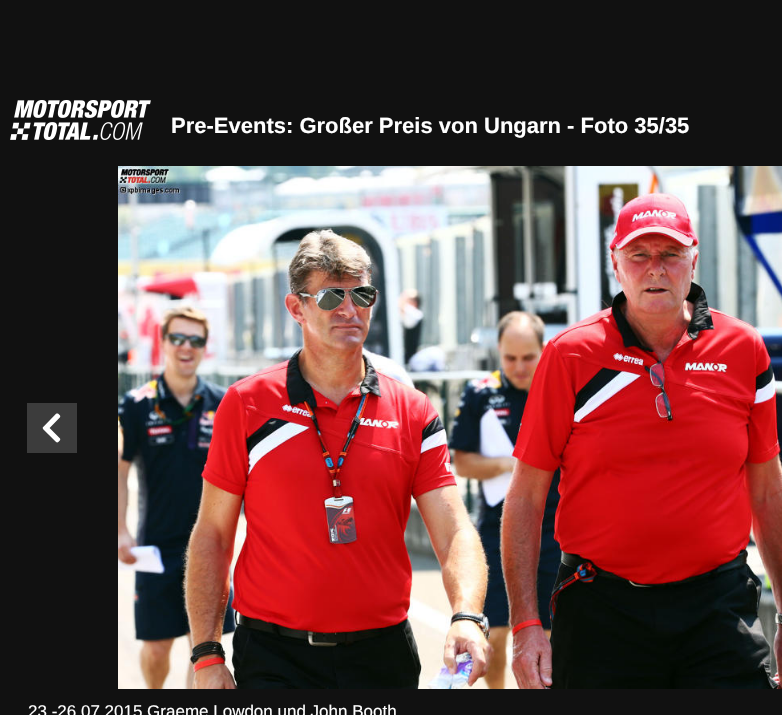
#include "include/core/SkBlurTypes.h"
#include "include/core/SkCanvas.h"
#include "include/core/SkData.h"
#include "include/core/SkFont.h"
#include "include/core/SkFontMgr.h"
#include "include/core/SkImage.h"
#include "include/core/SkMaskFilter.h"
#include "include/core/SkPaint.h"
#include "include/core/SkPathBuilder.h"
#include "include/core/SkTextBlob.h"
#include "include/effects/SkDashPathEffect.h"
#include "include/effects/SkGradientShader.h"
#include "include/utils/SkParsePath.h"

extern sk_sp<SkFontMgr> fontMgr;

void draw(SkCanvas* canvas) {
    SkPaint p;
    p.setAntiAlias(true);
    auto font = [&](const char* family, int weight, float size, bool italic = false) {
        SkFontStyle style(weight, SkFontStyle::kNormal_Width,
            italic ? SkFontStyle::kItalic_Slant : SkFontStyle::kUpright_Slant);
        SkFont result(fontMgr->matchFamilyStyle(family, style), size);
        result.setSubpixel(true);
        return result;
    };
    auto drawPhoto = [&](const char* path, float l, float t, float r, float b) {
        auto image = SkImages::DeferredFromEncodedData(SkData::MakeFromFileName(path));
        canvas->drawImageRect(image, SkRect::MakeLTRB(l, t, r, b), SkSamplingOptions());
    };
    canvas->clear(0xFF111111);
    drawPhoto("media/1.png", 10, 100, 151, 140);
    auto font1 = font("Liberation Sans", 700, 22);
    p.setColor(0xFFFFFFFF);
    canvas->drawString("Pre-Events: Großer Preis von Ungarn - Foto 35/35", 171, 133, font1, p);
    p.setColor(0xFF3C3C3C);
    canvas->drawRect(SkRect::MakeLTRB(27, 403, 77, 453), p);
    drawPhoto("media/2.png", 42, 413, 61, 443);
    drawPhoto("media/3.png", 118, 166, 782, 689);
    auto font2 = font("Liberation Sans", 400, 17);
    p.setColor(0xFFFFFFFF);
    canvas->drawString("23.-26.07.2015 Graeme Lowdon und John Booth", 28, 717, font2, p);
}
